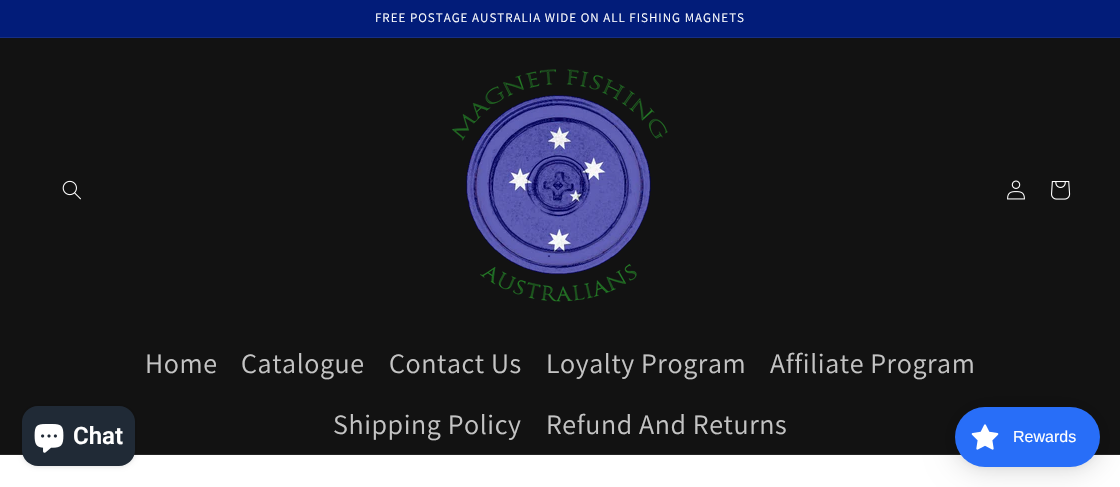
#include "include/core/SkBlurTypes.h"
#include "include/core/SkCanvas.h"
#include "include/core/SkData.h"
#include "include/core/SkFont.h"
#include "include/core/SkFontMgr.h"
#include "include/core/SkImage.h"
#include "include/core/SkMaskFilter.h"
#include "include/core/SkPaint.h"
#include "include/core/SkPathBuilder.h"
#include "include/core/SkTextBlob.h"
#include "include/effects/SkDashPathEffect.h"
#include "include/effects/SkGradientShader.h"
#include "include/utils/SkParsePath.h"

extern sk_sp<SkFontMgr> fontMgr;

void draw(SkCanvas* canvas) {
    SkPaint p;
    p.setAntiAlias(true);
    auto font = [&](const char* family, int weight, float size, bool italic = false) {
        SkFontStyle style(weight, SkFontStyle::kNormal_Width,
            italic ? SkFontStyle::kItalic_Slant : SkFontStyle::kUpright_Slant);
        SkFont result(fontMgr->matchFamilyStyle(family, style), size);
        result.setSubpixel(true);
        return result;
    };
    auto drawTracked = [&](const char* s, float x, float y, const SkFont& font, const SkPaint& ink, float letter, float word) {
        std::vector<SkGlyphID> glyphs(font.countText(s, strlen(s), SkTextEncoding::kUTF8));
        std::vector<float> xs(glyphs.size());
        font.textToGlyphs(s, strlen(s), SkTextEncoding::kUTF8, glyphs);
        font.getXPos(glyphs, xs, x);
        float extra = 0;
        for (size_t i = 0; i < glyphs.size(); i++) {
            xs[i] += extra;
            extra += letter + word * (glyphs[i] == font.unicharToGlyph(' '));
        }
        canvas->drawTextBlob(SkTextBlob::MakeFromPosHGlyphs(glyphs, xs, y, font), 0, 0, ink);
    };
    auto drawPhoto = [&](const char* path, float l, float t, float r, float b) {
        auto image = SkImages::DeferredFromEncodedData(SkData::MakeFromFileName(path));
        canvas->drawImageRect(image, SkRect::MakeLTRB(l, t, r, b), SkSamplingOptions());
    };
    canvas->clear(0xFFFFFFFF);
    p.setColor(0xFF021C79);
    canvas->drawRect(SkRect::MakeLTRB(0, 0, 1120, 37), p);
    p.setColor(0xFF162E84);
    canvas->drawRect(SkRect::MakeLTRB(0, 37, 1120, 38), p);
    auto font1 = font("Assistant", 400, 13);
    p.setColor(0xFFFFFFFF);
    drawTracked("FREE POSTAGE AUSTRALIA WIDE ON ALL FISHING MAGNETS", 375, 22, font1, p, 1, 0);
    p.setColor(0xFF121212);
    canvas->drawRect(SkRect::MakeLTRB(0, 38, 1120, 454), p);
    p.setColor(0xFF252525);
    canvas->drawRect(SkRect::MakeLTRB(0, 454, 1120, 455), p);
    p.setColor(0x26000000);
    p.setMaskFilter(SkMaskFilter::MakeBlur(kNormal_SkBlurStyle, 2.5f));
    canvas->drawRoundRect(SkRect::MakeLTRB(22, 406, 135, 466), 16, 16, p);
    p.setMaskFilter(nullptr);
    p.setColor(0xFF202A36);
    canvas->drawRoundRect(SkRect::MakeLTRB(22, 406, 135, 466), 16, 16, p);
    drawPhoto("media/1.png", 34, 424, 64, 453);
    auto font2 = font("Roboto", 600, 24);
    p.setColor(0xFFFFFFFF);
    canvas->drawString("Chat", 73, 444, font2, p);
    drawPhoto("media/2.png", 62, 180, 81, 200);
    drawPhoto("media/3.png", 452, 69, 668, 302);
    drawPhoto("media/4.png", 1007, 180, 1025, 200);
    drawPhoto("media/5.png", 1051, 181, 1071, 200);
    auto font3 = font("Assistant", 400, 28);
    p.setColor(0xFFC4C4C4);
    {
        const struct { const char* s; float x, y; } items[] = {
            {"Home", 145, 373},
            {"Catalogue", 241, 373},
            {"Contact Us", 389, 373},
            {"Loyalty Program", 546, 373},
            {"Affiliate Program", 770, 373},
            {"Shipping Policy", 333, 434},
            {"Refund And Returns", 546, 434},
        };
        for (auto [s, x, y] : items) {
            drawTracked(s, x, y, font3, p, 0.6f, 0);
        }
    }
    p.setColor(0x26000000);
    p.setMaskFilter(SkMaskFilter::MakeBlur(kNormal_SkBlurStyle, 15));
    canvas->drawRoundRect(SkRect::MakeLTRB(955, 409, 1100, 469), 30, 30, p);
    p.setMaskFilter(nullptr);
    p.setColor(0x0D000000);
    p.setMaskFilter(SkMaskFilter::MakeBlur(kNormal_SkBlurStyle, 3));
    canvas->drawRoundRect(SkRect::MakeLTRB(955, 408, 1100, 468), 30, 30, p);
    p.setMaskFilter(nullptr);
    p.setColor(0xFF286EF8);
    canvas->drawRoundRect(SkRect::MakeLTRB(955, 407, 1100, 467), 30, 30, p);
    drawPhoto("media/6.png", 971, 424, 999, 450);
    auto font4 = font("Liberation Sans", 400, 16);
    p.setColor(0xFFFFFFFF);
    canvas->drawString("Rewards", 1013, 442, font4, p);
}
